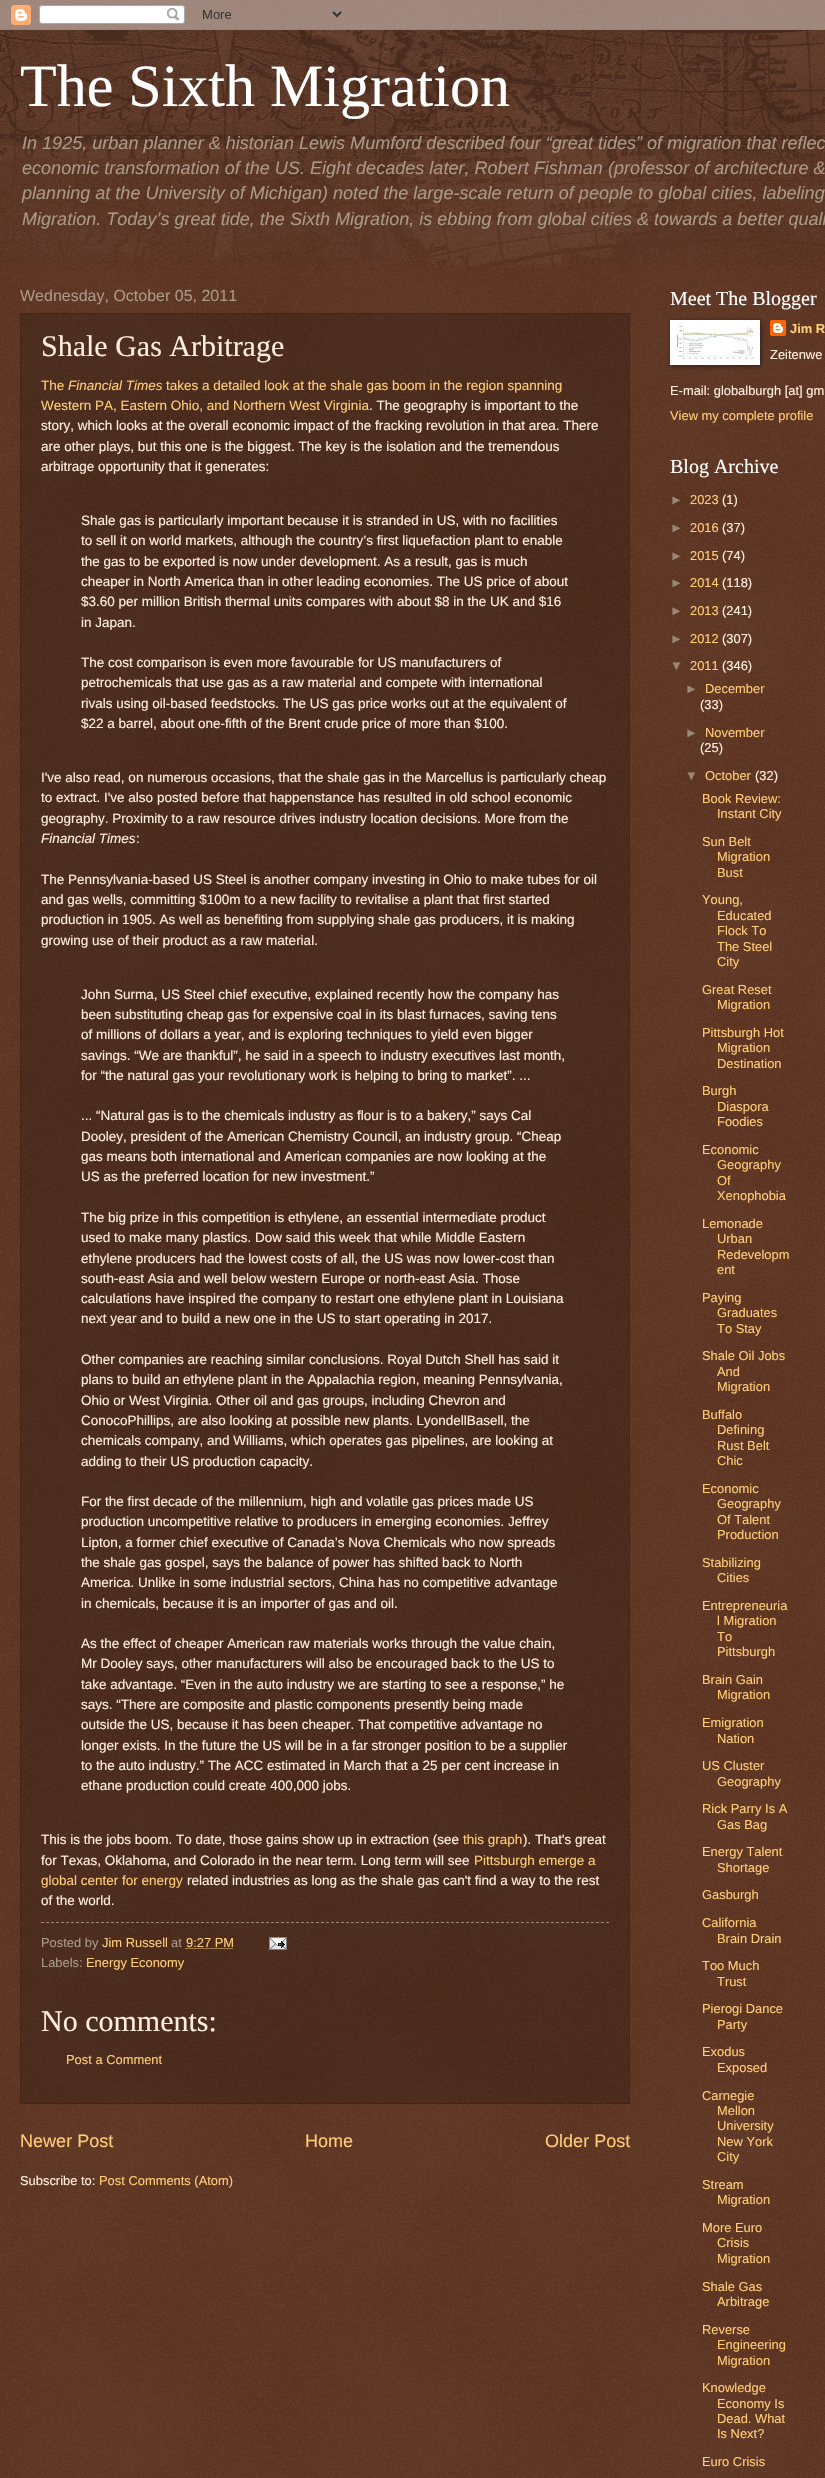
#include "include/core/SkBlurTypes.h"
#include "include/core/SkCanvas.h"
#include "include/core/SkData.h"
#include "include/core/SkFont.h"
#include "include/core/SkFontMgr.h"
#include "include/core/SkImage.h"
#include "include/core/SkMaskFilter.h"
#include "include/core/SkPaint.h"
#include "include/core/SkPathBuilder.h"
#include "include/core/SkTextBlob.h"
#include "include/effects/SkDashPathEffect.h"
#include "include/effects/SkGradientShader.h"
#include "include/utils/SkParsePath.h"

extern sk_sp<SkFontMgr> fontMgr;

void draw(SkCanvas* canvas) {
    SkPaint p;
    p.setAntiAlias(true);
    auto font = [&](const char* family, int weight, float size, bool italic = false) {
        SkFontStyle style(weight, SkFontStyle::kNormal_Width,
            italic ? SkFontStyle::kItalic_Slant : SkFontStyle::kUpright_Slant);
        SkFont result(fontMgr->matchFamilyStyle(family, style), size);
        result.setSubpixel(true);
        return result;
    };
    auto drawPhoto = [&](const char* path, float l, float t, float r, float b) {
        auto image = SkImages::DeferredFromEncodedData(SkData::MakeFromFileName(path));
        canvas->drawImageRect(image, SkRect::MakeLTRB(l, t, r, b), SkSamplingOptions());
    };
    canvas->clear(0xFF441500);
    drawPhoto("media/1.png", 0, 0, 825, 2478);
    drawPhoto("media/2.png", 0, 0, 825, 30);
    drawPhoto("media/3.png", 0, 30, 825, 270);
    auto font1 = font("Liberation Serif", 400, 60);
    p.setColor(0xFFFFFFFF);
    canvas->drawString("The Sixth Migration", 20, 106, font1, p);
    auto font2 = font("Liberation Sans", 400, 18.05f, true);
    p.setColor(0xFFAA9988);
    {
        const struct { const char* s; float x, y; } items[] = {
            {"In 1925, urban planner & historian Lewis Mumford described four “great tides” of migration that reflec", 22, 149},
            {"economic transformation of the US. Eight decades later, Robert Fishman (professor of architecture &", 22, 174},
            {"planning at the University of Michigan) noted the large-scale return of people to global cities, labeling", 22, 199},
            {"Migration. Today’s great tide, the Sixth Migration, is ebbing from global cities & towards a better quali", 22, 225},
        };
        for (auto [s, x, y] : items) {
            canvas->drawString(s, x, y, font2, p);
        }
    }
    auto font3 = font("Liberation Sans", 400, 16);
    canvas->drawString("Wednesday, October 05, 2011", 20, 301, font3, p);
    p.setColor(0x33000000);
    canvas->drawRect(SkRect::MakeLTRB(20, 313, 630, 2104), p);
    p.setStyle(SkPaint::kStroke_Style);
    p.setStrokeWidth(1);
    p.setColor(0xFF332211);
    p.setPathEffect(SkDashPathEffect::Make({{1, 1}}, 0));
    canvas->drawPath(SkPathBuilder().moveTo(20, 313.5f).lineTo(630, 313.5f).detach(), p);
    p.setPathEffect(nullptr);
    p.setPathEffect(SkDashPathEffect::Make({{1, 1}}, 0));
    canvas->drawPath(SkPathBuilder().moveTo(629.5f, 313).lineTo(629.5f, 2104).detach(), p);
    p.setPathEffect(nullptr);
    p.setPathEffect(SkDashPathEffect::Make({{1, 1}}, 0));
    canvas->drawPath(SkPathBuilder().moveTo(20, 2103.5f).lineTo(630, 2103.5f).detach(), p);
    p.setPathEffect(nullptr);
    p.setPathEffect(SkDashPathEffect::Make({{1, 1}}, 0));
    canvas->drawPath(SkPathBuilder().moveTo(20.5f, 313).lineTo(20.5f, 2104).detach(), p);
    p.setPathEffect(nullptr);
    auto font4 = font("Liberation Serif", 400, 30);
    p.setStyle(SkPaint::kFill_Style);
    p.setColor(0xFFFFEEDD);
    canvas->drawString("Shale Gas Arbitrage", 41, 356, font4, p);
    auto font5 = font("Liberation Sans", 400, 13.5f);
    p.setColor(0xFFFFCC77);
    canvas->drawString("The", 41, 390, font5, p);
    auto font6 = font("Liberation Sans", 400, 13.5f, true);
    canvas->drawString("Financial Times", 68, 390, font6, p);
    canvas->drawString("takes a detailed look at the shale gas boom in the region spanning", 166, 390, font5, p);
    canvas->drawString("Western PA, Eastern Ohio, and Northern West Virginia", 41, 410, font5, p);
    p.setColor(0xFFFFEEDD);
    {
        const struct { const char* s; float x, y; } items[] = {
            {". The geography is important to the", 369, 410},
            {"story, which looks at the overall economic impact of the fracking revolution in that area. There", 41, 430},
            {"are other plays, but this one is the biggest. The key is the isolation and the tremendous", 41, 451},
            {"arbitrage opportunity that it generates:", 41, 471},
            {"Shale gas is particularly important because it is stranded in US, with no facilities", 81, 525},
            {"to sell it on world markets, although the country’s first liquefaction plant to enable", 81, 545},
            {"the gas to be exported is now under development. As a result, gas is much", 81, 566},
            {"cheaper in North America than in other leading economies. The US price of about", 81, 586},
            {"$3.60 per million British thermal units compares with about $8 in the UK and $16", 81, 606},
            {"in Japan.", 81, 627},
            {"The cost comparison is even more favourable for US manufacturers of", 81, 667},
            {"petrochemicals that use gas as a raw material and compete with international", 81, 687},
            {"rivals using oil-based feedstocks. The US gas price works out at the equivalent of", 81, 708},
            {"$22 a barrel, about one-fifth of the Brent crude price of more than $100.", 81, 728},
            {"I've also read, on numerous occasions, that the shale gas in the Marcellus is particularly cheap", 41, 782},
            {"to extract. I've also posted before that happenstance has resulted in old school economic", 41, 802},
            {"geography. Proximity to a raw resource drives industry location decisions. More from the", 41, 823},
        };
        for (auto [s, x, y] : items) {
            canvas->drawString(s, x, y, font5, p);
        }
    }
    canvas->drawString("Financial Times", 41, 843, font6, p);
    {
        const struct { const char* s; float x, y; } items[] = {
            {":", 136, 843},
            {"The Pennsylvania-based US Steel is another company investing in Ohio to make tubes for oil", 41, 884},
            {"and gas wells, committing $100m to a new facility to revitalise a plant that first started", 41, 904},
            {"production in 1905. As well as benefiting from supplying shale gas producers, it is making", 41, 924},
            {"growing use of their product as a raw material.", 41, 945},
            {"John Surma, US Steel chief executive, explained recently how the company has", 81, 999},
            {"been substituting cheap gas for expensive coal in its blast furnaces, saving tens", 81, 1019},
            {"of millions of dollars a year, and is exploring techniques to yield even bigger", 81, 1039},
            {"savings. “We are thankful”, he said in a speech to industry executives last month,", 81, 1060},
            {"for “the natural gas your revolutionary work is helping to bring to market”. ...", 81, 1080},
            {"... “Natural gas is to the chemicals industry as flour is to a bakery,” says Cal", 81, 1120},
            {"Dooley, president of the American Chemistry Council, an industry group. “Cheap", 81, 1141},
            {"gas means both international and American companies are now looking at the", 81, 1161},
            {"US as the preferred location for new investment.”", 81, 1181},
            {"The big prize in this competition is ethylene, an essential intermediate product", 81, 1222},
            {"used to make many plastics. Dow said this week that while Middle Eastern", 81, 1242},
            {"ethylene producers had the lowest costs of all, the US was now lower-cost than", 81, 1263},
            {"south-east Asia and well below western Europe or north-east Asia. Those", 81, 1283},
            {"calculations have inspired the company to restart one ethylene plant in Louisiana", 81, 1303},
            {"next year and to build a new one in the US to start operating in 2017.", 81, 1323},
            {"Other companies are reaching similar conclusions. Royal Dutch Shell has said it", 81, 1364},
            {"plans to build an ethylene plant in the Appalachia region, meaning Pennsylvania,", 81, 1384},
            {"Ohio or West Virginia. Other oil and gas groups, including Chevron and", 81, 1405},
            {"ConocoPhillips, are also looking at possible new plants. LyondellBasell, the", 81, 1425},
            {"chemicals company, and Williams, which operates gas pipelines, are looking at", 81, 1445},
            {"adding to their US production capacity.", 81, 1466},
            {"For the first decade of the millennium, high and volatile gas prices made US", 81, 1506},
            {"production uncompetitive relative to producers in emerging economies. Jeffrey", 81, 1526},
            {"Lipton, a former chief executive of Canada’s Nova Chemicals who now spreads", 81, 1547},
            {"the shale gas gospel, says the balance of power has shifted back to North", 81, 1567},
            {"America. Unlike in some industrial sectors, China has no competitive advantage", 81, 1587},
            {"in chemicals, because it is an importer of gas and oil.", 81, 1608},
            {"As the effect of cheaper American raw materials works through the value chain,", 81, 1648},
            {"Mr Dooley says, other manufacturers will also be encouraged back to the US to", 81, 1668},
            {"take advantage. “Even in the auto industry we are starting to see a response,” he", 81, 1689},
            {"says. “There are composite and plastic components presently being made", 81, 1709},
            {"outside the US, because it has been cheaper. That competitive advantage no", 81, 1729},
            {"longer exists. In the future the US will be in a far stronger position to be a supplier", 81, 1750},
            {"to the auto industry.” The ACC estimated in March that a 25 per cent increase in", 81, 1770},
            {"ethane production could create 400,000 jobs.", 81, 1790},
            {"This is the jobs boom. To date, those gains show up in extraction (see", 41, 1844},
        };
        for (auto [s, x, y] : items) {
            canvas->drawString(s, x, y, font5, p);
        }
    }
    p.setColor(0xFFFFCC77);
    canvas->drawString("this graph", 463, 1844, font5, p);
    p.setColor(0xFFFFEEDD);
    canvas->drawString("). That's great", 523, 1844, font5, p);
    canvas->drawString("for Texas, Oklahoma, and Colorado in the near term. Long term will see", 41, 1865, font5, p);
    p.setColor(0xFFFFCC77);
    canvas->drawString("Pittsburgh emerge a", 474, 1865, font5, p);
    canvas->drawString("global center for energy", 41, 1885, font5, p);
    p.setColor(0xFFFFEEDD);
    canvas->drawString("related industries as long as the shale gas can't find a way to the rest", 187, 1885, font5, p);
    canvas->drawString("of the world.", 41, 1905, font5, p);
    p.setStyle(SkPaint::kStroke_Style);
    p.setColor(0xFF998877);
    p.setPathEffect(SkDashPathEffect::Make({{3, 2}}, 0));
    canvas->drawPath(SkPathBuilder().moveTo(41, 1922.5f).lineTo(609, 1922.5f).detach(), p);
    p.setPathEffect(nullptr);
    auto font7 = font("Liberation Sans", 400, 12.9f);
    p.setStyle(SkPaint::kFill_Style);
    p.setColor(0xFFAA9988);
    canvas->drawString("Posted by", 41, 1947, font7, p);
    p.setColor(0xFFFFCC77);
    canvas->drawString("Jim Russell", 102, 1947, font7, p);
    p.setColor(0xFFAA9988);
    canvas->drawString("at", 171, 1947, font7, p);
    p.setColor(0xFFFFCC77);
    canvas->drawString("9:27 PM", 186, 1947, font7, p);
    p.setStyle(SkPaint::kStroke_Style);
    p.setPathEffect(SkDashPathEffect::Make({{1, 1}}, 0));
    canvas->drawPath(SkPathBuilder().moveTo(185.5f, 1948.5f).lineTo(233.5f, 1948.5f).detach(), p);
    p.setPathEffect(nullptr);
    drawPhoto("media/4.png", 269, 1937, 287, 1950);
    p.setStyle(SkPaint::kFill_Style);
    p.setColor(0xFFAA9988);
    canvas->drawString("Labels:", 41, 1967, font7, p);
    p.setColor(0xFFFFCC77);
    canvas->drawString("Energy Economy", 86, 1967, font7, p);
    p.setColor(0xFFFFEEDD);
    canvas->drawString("No comments:", 41, 2031, font4, p);
    p.setColor(0xFFFFCC77);
    canvas->drawString("Post a Comment", 66, 2064, font7, p);
    auto font8 = font("Liberation Sans", 400, 18.05f);
    {
        const struct { const char* s; float x, y; } items[] = {
            {"Newer Post", 20, 2147},
            {"Home", 305, 2147},
            {"Older Post", 545, 2147},
        };
        for (auto [s, x, y] : items) {
            canvas->drawString(s, x, y, font8, p);
        }
    }
    p.setColor(0xFFFFEEDD);
    canvas->drawString("Subscribe to:", 20, 2185, font7, p);
    p.setColor(0xFFFFCC77);
    canvas->drawString("Post Comments (Atom)", 99, 2185, font7, p);
    auto font9 = font("Liberation Serif", 400, 20);
    p.setColor(0xFFFFFFFF);
    canvas->drawString("Meet The Blogger", 670, 305, font9, p);
    p.setColor(0x80000000);
    p.setMaskFilter(SkMaskFilter::MakeBlur(kNormal_SkBlurStyle, 2.5f));
    canvas->drawRect(SkRect::MakeLTRB(671, 321, 761, 366), p);
    p.setMaskFilter(nullptr);
    p.setColor(0xFFFFFFFF);
    canvas->drawRect(SkRect::MakeLTRB(670, 320, 760, 365), p);
    drawPhoto("media/5.png", 677, 325, 754, 359);
    drawPhoto("media/6.png", 770, 320, 786, 336);
    auto font10 = font("Liberation Sans", 700, 12.9f);
    p.setColor(0xFFFFCC77);
    canvas->drawString("Jim R", 790, 333, font10, p);
    p.setColor(0xFFFFEEDD);
    canvas->drawString("Zeitenwe", 770, 359, font7, p);
    canvas->drawString("E-mail: globalburgh [at] gm", 670, 395, font7, p);
    p.setColor(0xFFFFCC77);
    canvas->drawString("View my complete profile", 670, 420, font7, p);
    p.setColor(0xFFFFFFFF);
    canvas->drawString("Blog Archive", 670, 473, font9, p);
    p.setColor(0xFF998877);
    canvas->drawString("►", 670, 504, font7, p);
    p.setColor(0xFFFFCC77);
    canvas->drawString("2023", 690, 504, font7, p);
    p.setColor(0xFFFFEEDD);
    canvas->drawString("(1)", 722, 504, font7, p);
    p.setColor(0xFF998877);
    canvas->drawString("►", 670, 532, font7, p);
    p.setColor(0xFFFFCC77);
    canvas->drawString("2016", 690, 532, font7, p);
    p.setColor(0xFFFFEEDD);
    canvas->drawString("(37)", 722, 532, font7, p);
    p.setColor(0xFF998877);
    canvas->drawString("►", 670, 560, font7, p);
    p.setColor(0xFFFFCC77);
    canvas->drawString("2015", 690, 560, font7, p);
    p.setColor(0xFFFFEEDD);
    canvas->drawString("(74)", 722, 560, font7, p);
    p.setColor(0xFF998877);
    canvas->drawString("►", 670, 587, font7, p);
    p.setColor(0xFFFFCC77);
    canvas->drawString("2014", 690, 587, font7, p);
    p.setColor(0xFFFFEEDD);
    canvas->drawString("(118)", 722, 587, font7, p);
    p.setColor(0xFF998877);
    canvas->drawString("►", 670, 615, font7, p);
    p.setColor(0xFFFFCC77);
    canvas->drawString("2013", 690, 615, font7, p);
    p.setColor(0xFFFFEEDD);
    canvas->drawString("(241)", 722, 615, font7, p);
    p.setColor(0xFF998877);
    canvas->drawString("►", 670, 643, font7, p);
    p.setColor(0xFFFFCC77);
    canvas->drawString("2012", 690, 643, font7, p);
    p.setColor(0xFFFFEEDD);
    canvas->drawString("(307)", 722, 643, font7, p);
    p.setColor(0xFF998877);
    canvas->drawString("▼", 670, 670, font7, p);
    p.setColor(0xFFFFCC77);
    canvas->drawString("2011", 690, 670, font7, p);
    p.setColor(0xFFFFEEDD);
    canvas->drawString("(346)", 722, 670, font7, p);
    p.setColor(0xFF998877);
    canvas->drawString("►", 685, 693, font7, p);
    p.setColor(0xFFFFCC77);
    canvas->drawString("December", 705, 693, font7, p);
    p.setColor(0xFFFFEEDD);
    canvas->drawString("(33)", 700, 709, font7, p);
    p.setColor(0xFF998877);
    canvas->drawString("►", 685, 737, font7, p);
    p.setColor(0xFFFFCC77);
    canvas->drawString("November", 705, 737, font7, p);
    p.setColor(0xFFFFEEDD);
    canvas->drawString("(25)", 700, 752, font7, p);
    p.setColor(0xFF998877);
    canvas->drawString("▼", 685, 780, font7, p);
    p.setColor(0xFFFFCC77);
    canvas->drawString("October", 705, 780, font7, p);
    p.setColor(0xFFFFEEDD);
    canvas->drawString("(32)", 755, 780, font7, p);
    p.setColor(0xFFFFCC77);
    {
        const struct { const char* s; float x, y; } items[] = {
            {"Book Review:", 702, 803},
            {"Instant City", 717, 818},
            {"Sun Belt", 702, 846},
            {"Migration", 717, 861},
            {"Bust", 717, 877},
            {"Young,", 702, 904},
            {"Educated", 717, 920},
            {"Flock To", 717, 935},
            {"The Steel", 717, 951},
            {"City", 717, 966},
            {"Great Reset", 702, 994},
            {"Migration", 717, 1009},
            {"Pittsburgh Hot", 702, 1037},
            {"Migration", 717, 1052},
            {"Destination", 717, 1068},
            {"Burgh", 702, 1095},
            {"Diaspora", 717, 1111},
            {"Foodies", 717, 1126},
            {"Economic", 702, 1154},
            {"Geography", 717, 1169},
            {"Of", 717, 1185},
            {"Xenophobia", 717, 1200},
            {"Lemonade", 702, 1228},
            {"Urban", 717, 1243},
            {"Redevelopm", 717, 1259},
            {"ent", 717, 1274},
            {"Paying", 702, 1302},
            {"Graduates", 717, 1317},
            {"To Stay", 717, 1333},
            {"Shale Oil Jobs", 702, 1360},
            {"And", 717, 1376},
            {"Migration", 717, 1391},
            {"Buffalo", 702, 1419},
            {"Defining", 717, 1434},
            {"Rust Belt", 717, 1450},
            {"Chic", 717, 1465},
            {"Economic", 702, 1493},
            {"Geography", 717, 1508},
            {"Of Talent", 717, 1524},
            {"Production", 717, 1539},
            {"Stabilizing", 702, 1567},
            {"Cities", 717, 1582},
            {"Entrepreneuria", 702, 1610},
            {"l Migration", 717, 1625},
            {"To", 717, 1641},
            {"Pittsburgh", 717, 1656},
            {"Brain Gain", 702, 1684},
            {"Migration", 717, 1699},
            {"Emigration", 702, 1727},
            {"Nation", 717, 1743},
            {"US Cluster", 702, 1770},
            {"Geography", 717, 1786},
            {"Rick Parry Is A", 702, 1813},
            {"Gas Bag", 717, 1829},
            {"Energy Talent", 702, 1856},
            {"Shortage", 717, 1872},
            {"Gasburgh", 702, 1899},
            {"California", 702, 1927},
            {"Brain Drain", 717, 1943},
            {"Too Much", 702, 1970},
            {"Trust", 717, 1986},
            {"Pierogi Dance", 702, 2013},
            {"Party", 717, 2029},
            {"Exodus", 702, 2056},
            {"Exposed", 717, 2072},
            {"Carnegie", 702, 2100},
            {"Mellon", 717, 2115},
            {"University", 717, 2130},
            {"New York", 717, 2146},
            {"City", 717, 2161},
            {"Stream", 702, 2189},
            {"Migration", 717, 2204},
            {"More Euro", 702, 2232},
            {"Crisis", 717, 2247},
            {"Migration", 717, 2263},
            {"Shale Gas", 702, 2291},
            {"Arbitrage", 717, 2306},
            {"Reverse", 702, 2334},
            {"Engineering", 717, 2349},
            {"Migration", 717, 2365},
            {"Knowledge", 702, 2392},
            {"Economy Is", 717, 2408},
            {"Dead. What", 717, 2423},
            {"Is Next?", 717, 2438},
            {"Euro Crisis", 702, 2466},
        };
        for (auto [s, x, y] : items) {
            canvas->drawString(s, x, y, font7, p);
        }
    }
}
